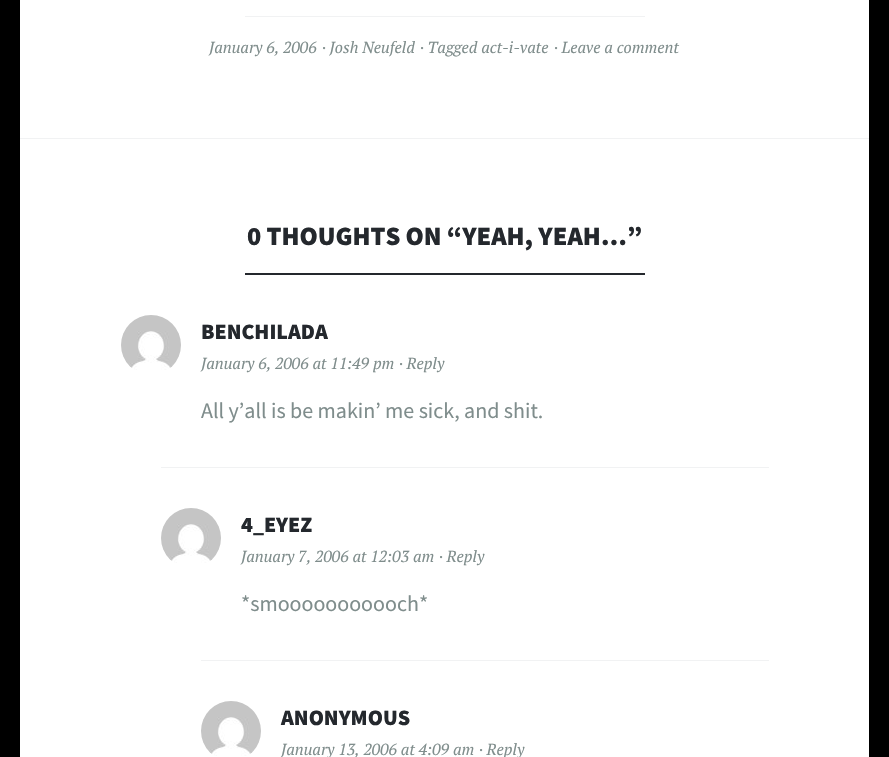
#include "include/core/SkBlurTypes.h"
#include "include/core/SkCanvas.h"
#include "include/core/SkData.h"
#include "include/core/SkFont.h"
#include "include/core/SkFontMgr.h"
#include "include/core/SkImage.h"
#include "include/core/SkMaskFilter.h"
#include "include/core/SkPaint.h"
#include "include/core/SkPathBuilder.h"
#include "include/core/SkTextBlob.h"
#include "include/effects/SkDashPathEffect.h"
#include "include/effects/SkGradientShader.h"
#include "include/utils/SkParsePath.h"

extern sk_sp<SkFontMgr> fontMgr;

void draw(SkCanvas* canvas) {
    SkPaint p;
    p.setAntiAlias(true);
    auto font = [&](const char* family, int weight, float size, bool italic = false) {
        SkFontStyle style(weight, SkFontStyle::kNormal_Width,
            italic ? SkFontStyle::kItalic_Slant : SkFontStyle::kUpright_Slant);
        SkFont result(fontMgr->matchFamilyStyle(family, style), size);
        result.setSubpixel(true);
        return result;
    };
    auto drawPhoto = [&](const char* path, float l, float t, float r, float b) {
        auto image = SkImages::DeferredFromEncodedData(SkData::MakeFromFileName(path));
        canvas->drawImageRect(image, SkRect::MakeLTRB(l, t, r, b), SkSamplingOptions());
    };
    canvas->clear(0xFF000000);
    p.setColor(0xFFFFFFFF);
    canvas->drawRect(SkRect::MakeLTRB(20, 0, 869, 757), p);
    p.setColor(0xFFF1F2F3);
    canvas->drawRect(SkRect::MakeLTRB(245, 16, 645, 17), p);
    auto font1 = font("PT Serif", 400, 16, true);
    p.setColor(0xFF7F8D8C);
    {
        const struct { const char* s; float x, y; } items[] = {
            {"January 6, 2006", 209, 53},
            {"· Josh Neufeld", 322, 53},
            {"· Tagged act-i-vate", 420, 53},
            {"· Leave a comment", 554, 53},
        };
        for (auto [s, x, y] : items) {
            canvas->drawString(s, x, y, font1, p);
        }
    }
    p.setColor(0xFFF1F2F3);
    canvas->drawRect(SkRect::MakeLTRB(20, 138, 869, 139), p);
    auto font2 = font("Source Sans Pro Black", 900, 26.4f);
    p.setColor(0xFF24282D);
    canvas->drawString("0 THOUGHTS ON “YEAH, YEAH…”", 247, 245, font2, p);
    canvas->drawRect(SkRect::MakeLTRB(245, 273, 645, 275), p);
    drawPhoto("media/1.png", 121, 315, 181, 370);
    auto font3 = font("Source Sans Pro Black", 900, 22);
    canvas->drawString("BENCHILADA", 201, 339, font3, p);
    p.setColor(0xFF7F8D8C);
    canvas->drawString("January 6, 2006 at 11:49 pm", 201, 369, font1, p);
    canvas->drawString("· Reply", 399, 369, font1, p);
    auto font4 = font("Source Sans Pro", 400, 22);
    canvas->drawString("All y’all is be makin’ me sick, and shit.", 201, 418, font4, p);
    p.setColor(0xFFF1F2F3);
    canvas->drawRect(SkRect::MakeLTRB(161, 467, 769, 468), p);
    drawPhoto("media/1.png", 161, 508, 221, 563);
    p.setColor(0xFF24282D);
    canvas->drawString("4_EYEZ", 241, 532, font3, p);
    p.setColor(0xFF7F8D8C);
    canvas->drawString("January 7, 2006 at 12:03 am", 241, 562, font1, p);
    canvas->drawString("· Reply", 439, 562, font1, p);
    canvas->drawString("*smooooooooooch*", 241, 611, font4, p);
    p.setColor(0xFFF1F2F3);
    canvas->drawRect(SkRect::MakeLTRB(201, 660, 769, 661), p);
    drawPhoto("media/2.png", 201, 701, 261, 756);
    p.setColor(0xFF24282D);
    canvas->drawString("ANONYMOUS", 281, 725, font3, p);
    p.setColor(0xFF7F8D8C);
    canvas->drawString("January 13, 2006 at 4:09 am", 281, 755, font1, p);
    canvas->drawString("· Reply", 479, 755, font1, p);
}
